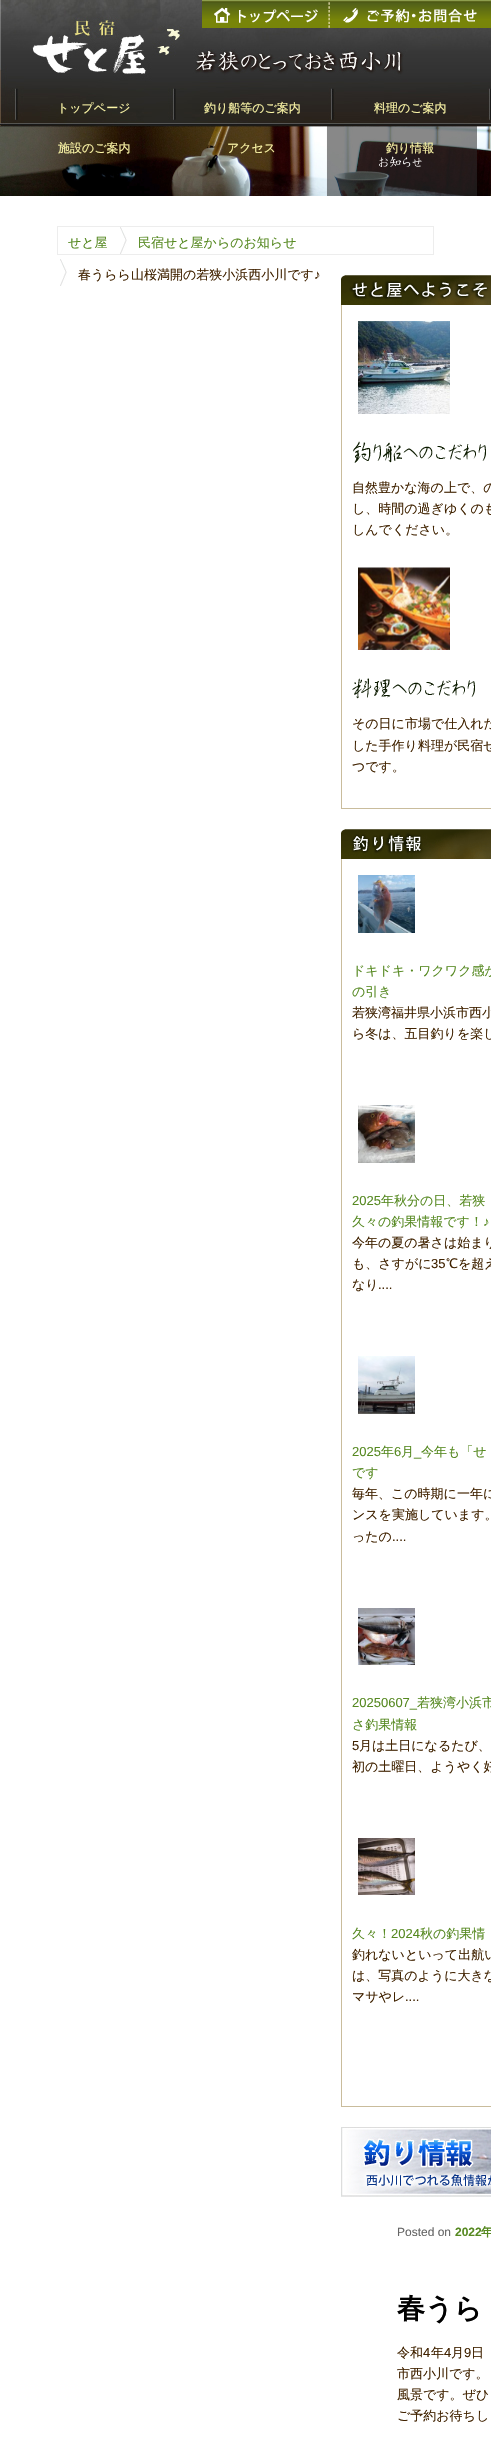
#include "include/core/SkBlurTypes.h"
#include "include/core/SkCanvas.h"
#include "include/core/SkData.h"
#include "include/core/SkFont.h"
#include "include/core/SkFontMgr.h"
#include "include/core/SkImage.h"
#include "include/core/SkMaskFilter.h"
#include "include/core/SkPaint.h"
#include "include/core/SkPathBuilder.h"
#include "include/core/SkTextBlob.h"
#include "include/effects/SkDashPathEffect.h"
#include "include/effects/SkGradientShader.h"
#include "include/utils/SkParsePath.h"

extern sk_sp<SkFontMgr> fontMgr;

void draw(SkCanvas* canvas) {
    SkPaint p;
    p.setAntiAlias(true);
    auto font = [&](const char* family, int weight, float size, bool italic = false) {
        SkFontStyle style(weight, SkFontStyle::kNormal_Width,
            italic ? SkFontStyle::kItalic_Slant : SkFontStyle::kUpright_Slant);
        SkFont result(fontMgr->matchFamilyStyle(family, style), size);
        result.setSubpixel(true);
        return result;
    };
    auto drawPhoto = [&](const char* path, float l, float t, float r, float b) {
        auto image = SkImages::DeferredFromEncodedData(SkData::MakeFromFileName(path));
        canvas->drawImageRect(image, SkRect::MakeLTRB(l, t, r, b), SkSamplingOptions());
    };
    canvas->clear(0xFFFFFFFF);
    drawPhoto("media/1.png", 0, 0, 491, 88);
    drawPhoto("media/2.png", 202, 0, 330, 28);
    drawPhoto("media/3.png", 330, 0, 491, 28);
    drawPhoto("media/4.png", 0, 88, 491, 126);
    auto font1 = font("WenQuanYi Zen Hei", 500, 12);
    p.setColor(0xFFFCF6A7);
    {
        const struct { const char* s; float x, y; } items[] = {
            {"トップページ", 57, 112},
            {"釣り船等のご案内", 204, 112},
            {"料理のご案内", 374, 112},
        };
        for (auto [s, x, y] : items) {
            canvas->drawString(s, x, y, font1, p);
        }
    }
    drawPhoto("media/5.png", 0, 126, 491, 196);
    {
        const struct { const char* s; float x, y; } items[] = {
            {"施設のご案内", 58, 152},
            {"アクセス", 227, 152},
            {"釣り情報", 386, 152},
        };
        for (auto [s, x, y] : items) {
            canvas->drawString(s, x, y, font1, p);
        }
    }
    p.setStyle(SkPaint::kStroke_Style);
    p.setStrokeWidth(1);
    p.setColor(0xFFEDEDED);
    canvas->drawRect(SkRect::MakeLTRB(57.5f, 226.5f, 433.5f, 254.5f), p);
    auto font2 = font("WenQuanYi Zen Hei", 500, 13);
    p.setStyle(SkPaint::kFill_Style);
    p.setColor(0xFF568921);
    canvas->drawString("せと屋", 68, 247, font2, p);
    drawPhoto("media/6.png", 120, 227, 127, 254);
    canvas->drawString("民宿せと屋からのお知らせ", 138, 247, font2, p);
    drawPhoto("media/6.png", 60, 259, 67, 286);
    p.setColor(0xFF402200);
    canvas->drawString("春うらら山桜満開の若狭小浜西小川です", 78, 279, font2, p);
    auto font3 = font("Liberation Sans", 400, 13);
    canvas->drawString("♪", 314, 279, font3, p);
    drawPhoto("media/7.png", 341, 275, 491, 305);
    p.setColor(0xFFC9BC9C);
    canvas->drawRect(SkRect::MakeLTRB(341, 808, 491, 809), p);
    canvas->drawRect(SkRect::MakeLTRB(341, 305, 342, 809), p);
    drawPhoto("media/8.png", 358, 321, 450, 414);
    drawPhoto("media/9.png", 353, 441, 486, 463);
    p.setColor(0xFF402200);
    {
        const struct { const char* s; float x, y; } items[] = {
            {"自然豊かな海の上で、の", 352, 492},
            {"し、時間の過ぎゆくのも", 352, 513},
            {"しんでください。", 352, 534},
        };
        for (auto [s, x, y] : items) {
            canvas->drawString(s, x, y, font2, p);
        }
    }
    drawPhoto("media/10.png", 358, 567, 450, 650);
    drawPhoto("media/11.png", 352, 678, 475, 699);
    {
        const struct { const char* s; float x, y; } items[] = {
            {"その日に市場で仕入れた", 352, 728},
            {"した手作り料理が民宿せ", 352, 750},
            {"つです。", 352, 771},
        };
        for (auto [s, x, y] : items) {
            canvas->drawString(s, x, y, font2, p);
        }
    }
    drawPhoto("media/12.png", 341, 829, 491, 859);
    p.setColor(0xFFC9BC9C);
    canvas->drawRect(SkRect::MakeLTRB(341, 2106, 491, 2107), p);
    canvas->drawRect(SkRect::MakeLTRB(341, 859, 342, 2107), p);
    drawPhoto("media/13.png", 358, 875, 415, 933);
    p.setColor(0xFF568921);
    canvas->drawString("ドキドキ・ワクワク感が", 352, 975, font2, p);
    canvas->drawString("の引き", 352, 996, font2, p);
    p.setColor(0xFF402200);
    canvas->drawString("若狭湾福井県小浜市西小", 352, 1017, font2, p);
    canvas->drawString("ら冬は、五目釣りを楽し", 352, 1038, font2, p);
    drawPhoto("media/14.png", 358, 1105, 415, 1163);
    p.setColor(0xFF568921);
    canvas->drawString("2025", 352, 1205, font3, p);
    canvas->drawString("年秋分の日、若狭", 381, 1205, font2, p);
    canvas->drawString("久々の釣果情報です！", 352, 1226, font2, p);
    canvas->drawString("♪", 483, 1226, font3, p);
    p.setColor(0xFF402200);
    canvas->drawString("今年の夏の暑さは始まり", 352, 1247, font2, p);
    canvas->drawString("も、さすがに", 352, 1268, font2, p);
    canvas->drawString("35", 431, 1268, font3, p);
    canvas->drawString("℃を超え", 446, 1268, font2, p);
    canvas->drawString("なり", 352, 1289, font2, p);
    canvas->drawString("....", 378, 1289, font3, p);
    drawPhoto("media/15.png", 358, 1356, 415, 1414);
    p.setColor(0xFF568921);
    canvas->drawString("2025", 352, 1456, font3, p);
    canvas->drawString("年", 381, 1456, font2, p);
    canvas->drawString("6", 394, 1456, font3, p);
    canvas->drawString("月", 401, 1456, font2, p);
    canvas->drawString("_", 414, 1456, font3, p);
    canvas->drawString("今年も「せ", 421, 1456, font2, p);
    canvas->drawString("です", 352, 1477, font2, p);
    p.setColor(0xFF402200);
    {
        const struct { const char* s; float x, y; } items[] = {
            {"毎年、この時期に一年に", 352, 1498},
            {"ンスを実施しています。", 352, 1519},
            {"ったの", 352, 1541},
        };
        for (auto [s, x, y] : items) {
            canvas->drawString(s, x, y, font2, p);
        }
    }
    canvas->drawString("....", 392, 1541, font3, p);
    drawPhoto("media/16.png", 358, 1608, 415, 1665);
    p.setColor(0xFF568921);
    canvas->drawString("20250607_", 352, 1707, font3, p);
    canvas->drawString("若狭湾小浜市", 417, 1707, font2, p);
    canvas->drawString("さ釣果情報", 352, 1729, font2, p);
    p.setColor(0xFF402200);
    canvas->drawString("5", 352, 1750, font3, p);
    canvas->drawString("月は土日になるたび、", 359, 1750, font2, p);
    canvas->drawString("初の土曜日、ようやく好", 352, 1771, font2, p);
    drawPhoto("media/17.png", 358, 1838, 415, 1895);
    p.setColor(0xFF568921);
    canvas->drawString("久々！", 352, 1938, font2, p);
    canvas->drawString("2024", 391, 1938, font3, p);
    canvas->drawString("秋の釣果情", 420, 1938, font2, p);
    p.setColor(0xFF402200);
    {
        const struct { const char* s; float x, y; } items[] = {
            {"釣れないといって出航い", 352, 1959},
            {"は、写真のように大きな", 352, 1980},
            {"マサやレ", 352, 2001},
        };
        for (auto [s, x, y] : items) {
            canvas->drawString(s, x, y, font2, p);
        }
    }
    canvas->drawString("....", 405, 2001, font3, p);
    drawPhoto("media/18.png", 341, 2127, 491, 2197);
    auto font4 = font("Liberation Sans", 400, 12);
    p.setColor(0xFF666666);
    canvas->drawString("Posted on", 397, 2236, font4, p);
    auto font5 = font("Liberation Sans", 700, 12);
    p.setColor(0xFF568921);
    canvas->drawString("2022", 455, 2236, font5, p);
    auto font6 = font("WenQuanYi Zen Hei", 700, 12);
    canvas->drawString("年", 481, 2236, font6, p);
    auto font7 = font("WenQuanYi Zen Hei", 700, 28);
    p.setColor(0xFF000000);
    canvas->drawString("春うら", 397, 2318, font7, p);
    p.setColor(0xFF402200);
    canvas->drawString("令和", 397, 2357, font2, p);
    canvas->drawString("4", 423, 2357, font3, p);
    canvas->drawString("年", 431, 2357, font2, p);
    canvas->drawString("4", 444, 2357, font3, p);
    canvas->drawString("月", 451, 2357, font2, p);
    canvas->drawString("9", 464, 2357, font3, p);
    {
        const struct { const char* s; float x, y; } items[] = {
            {"日", 471, 2357},
            {"市西小川です。", 397, 2378},
            {"風景です。ぜひ", 397, 2399},
            {"ご予約お待ちし", 397, 2420},
        };
        for (auto [s, x, y] : items) {
            canvas->drawString(s, x, y, font2, p);
        }
    }
}
